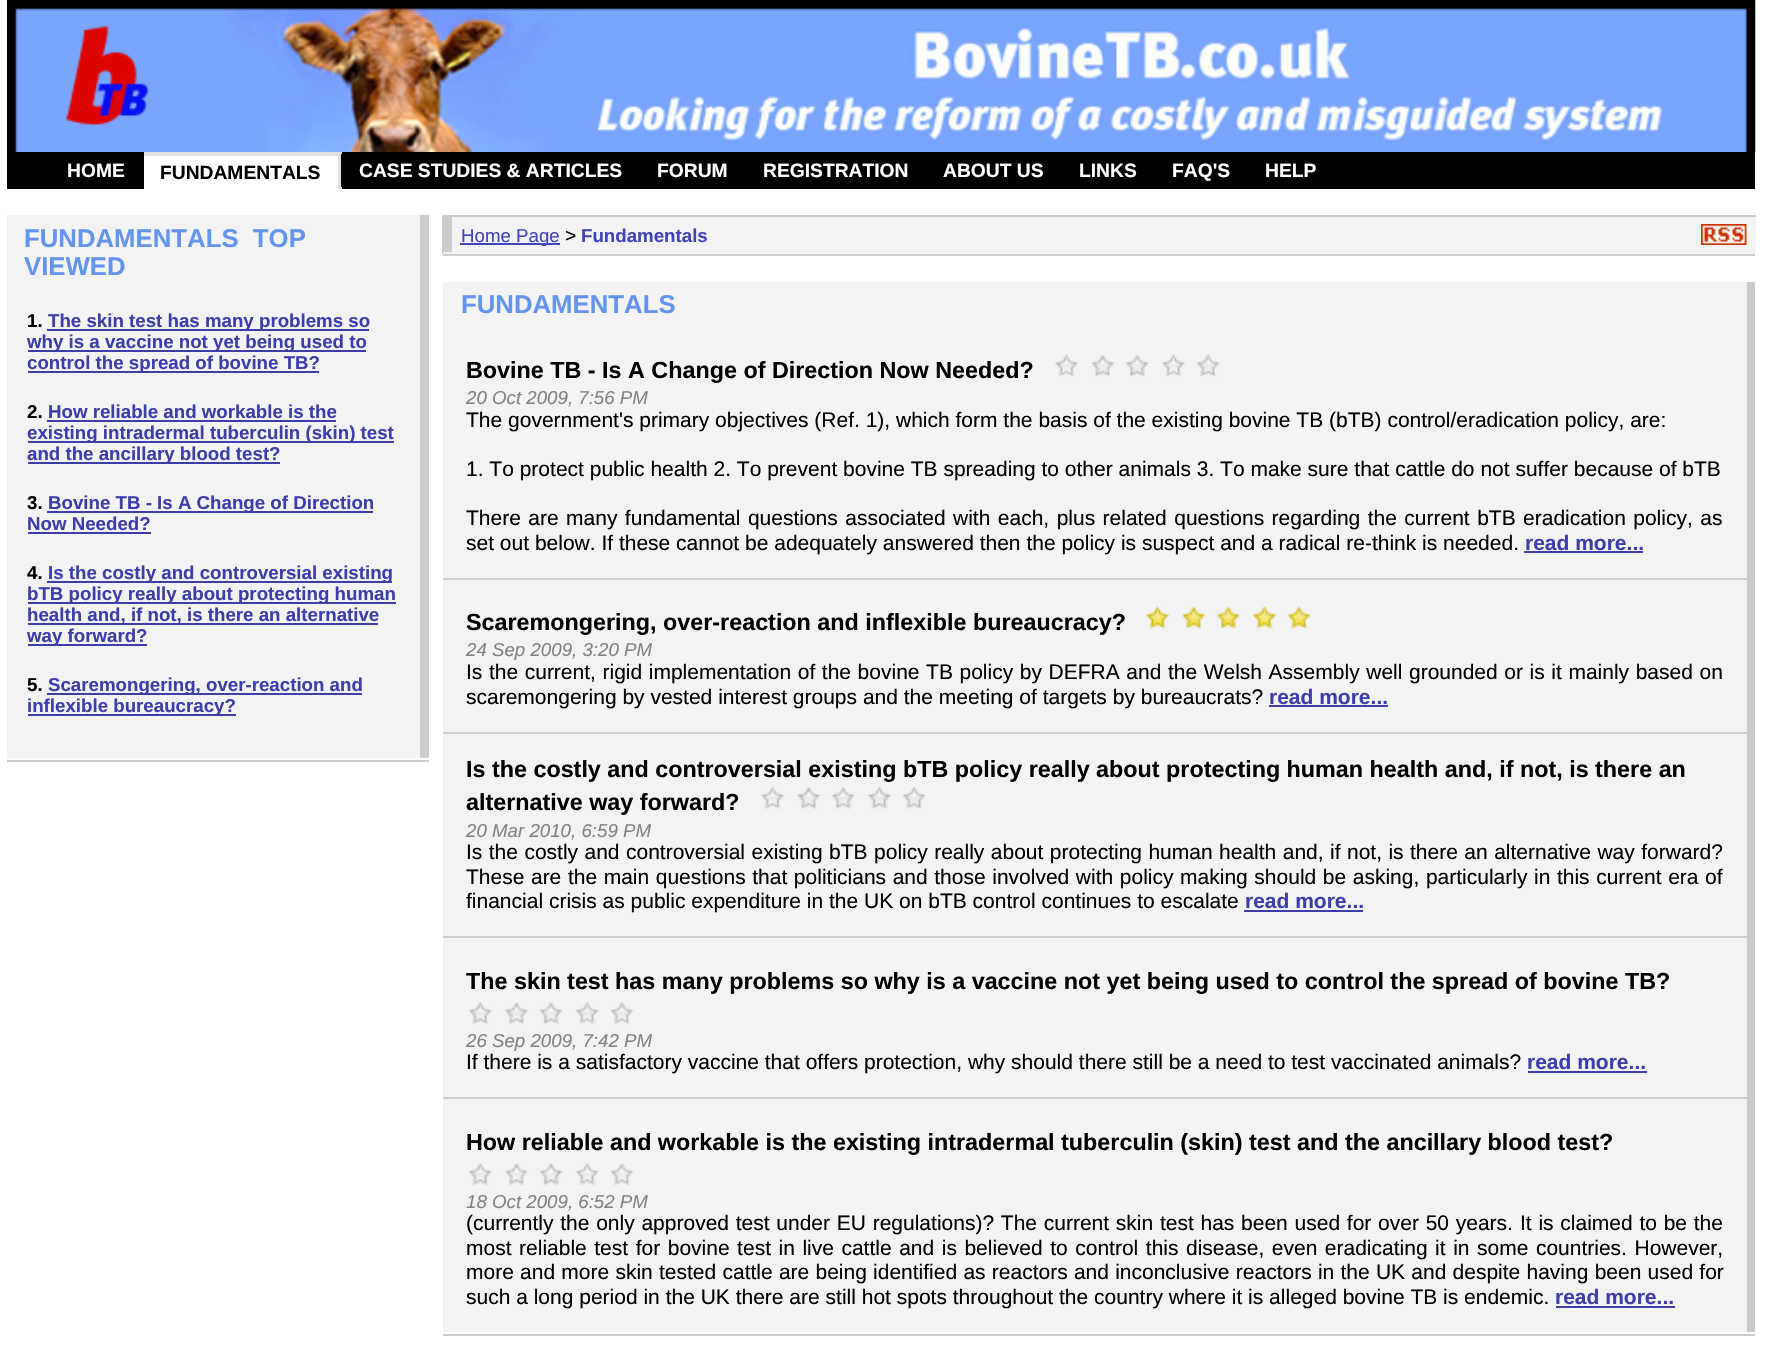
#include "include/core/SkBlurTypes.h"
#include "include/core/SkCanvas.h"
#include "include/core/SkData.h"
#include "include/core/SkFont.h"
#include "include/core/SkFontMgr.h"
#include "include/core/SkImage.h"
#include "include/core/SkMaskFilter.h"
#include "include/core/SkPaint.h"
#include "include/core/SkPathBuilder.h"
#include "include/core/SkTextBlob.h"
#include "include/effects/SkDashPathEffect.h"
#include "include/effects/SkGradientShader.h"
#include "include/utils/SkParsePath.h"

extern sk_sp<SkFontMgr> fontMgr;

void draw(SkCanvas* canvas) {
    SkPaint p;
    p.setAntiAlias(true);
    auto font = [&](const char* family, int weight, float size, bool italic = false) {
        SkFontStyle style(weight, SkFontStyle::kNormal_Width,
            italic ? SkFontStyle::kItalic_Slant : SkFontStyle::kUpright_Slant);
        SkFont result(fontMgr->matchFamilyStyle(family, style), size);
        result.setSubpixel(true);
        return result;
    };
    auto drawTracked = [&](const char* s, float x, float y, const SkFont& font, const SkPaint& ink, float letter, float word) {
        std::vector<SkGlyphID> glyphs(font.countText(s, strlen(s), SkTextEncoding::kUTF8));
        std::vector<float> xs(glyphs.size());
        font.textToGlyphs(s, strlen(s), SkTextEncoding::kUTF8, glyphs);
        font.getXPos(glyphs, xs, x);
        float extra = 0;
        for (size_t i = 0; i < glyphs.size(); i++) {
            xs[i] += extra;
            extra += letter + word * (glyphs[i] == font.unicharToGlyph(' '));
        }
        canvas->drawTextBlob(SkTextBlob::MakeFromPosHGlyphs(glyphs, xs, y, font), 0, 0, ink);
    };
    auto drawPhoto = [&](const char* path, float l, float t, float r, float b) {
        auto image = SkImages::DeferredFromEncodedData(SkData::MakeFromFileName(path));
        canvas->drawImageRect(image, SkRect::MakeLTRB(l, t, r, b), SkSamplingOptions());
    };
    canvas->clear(0xFFFFFFFF);
    drawPhoto("media/1.png", 7, 0, 1756, 153);
    drawPhoto("media/2.png", 65, 25, 150, 125);
    p.setColor(0xFF000000);
    canvas->drawRect(SkRect::MakeLTRB(7, 152, 1755, 189), p);
    auto font1 = font("Liberation Sans", 700, 19.25f);
    p.setColor(0xFFFFFFFF);
    canvas->drawString("HOME", 67, 177, font1, p);
    {
        const struct { float l, t, r, b; SkColor color; } items[] = {
            {144, 156, 338, 189, 0xFFFFFFFF},
            {144, 152, 341, 156, 0xFFE0E0E0},
            {338, 152, 342, 189, 0xFFE0E0E0},
        };
        for (auto [l, t, r, b, color] : items) {
            p.setColor(color);
            canvas->drawRect(SkRect::MakeLTRB(l, t, r, b), p);
        }
    }
    p.setColor(0xFF000000);
    canvas->drawString("FUNDAMENTALS", 160, 179, font1, p);
    canvas->drawRect(SkRect::MakeLTRB(341, 154, 342, 187), p);
    p.setColor(0xFFFFFFFF);
    {
        const struct { const char* s; float x, y; } items[] = {
            {"CASE STUDIES & ARTICLES", 359, 177},
            {"FORUM", 657, 177},
            {"REGISTRATION", 763, 177},
            {"ABOUT US", 943, 177},
            {"LINKS", 1079, 177},
            {"FAQ'S", 1172, 177},
            {"HELP", 1265, 177},
        };
        for (auto [s, x, y] : items) {
            canvas->drawString(s, x, y, font1, p);
        }
    }
    p.setColor(0xFFF3F3F3);
    canvas->drawRect(SkRect::MakeLTRB(7, 215, 420, 758), p);
    p.setColor(0xFFCCCCCC);
    canvas->drawRect(SkRect::MakeLTRB(420, 215, 429, 758), p);
    auto font2 = font("Liberation Sans", 700, 25.75f);
    p.setColor(0xFF6495ED);
    canvas->drawString("FUNDAMENTALS  TOP", 24, 247, font2, p);
    canvas->drawString("VIEWED", 24, 275, font2, p);
    auto font3 = font("Liberation Sans", 700, 18.7f);
    p.setColor(0xFF000000);
    canvas->drawString("1.", 27, 327, font3, p);
    p.setColor(0xFF3E3EAB);
    canvas->drawRect(SkRect::MakeLTRB(47, 329, 369, 331), p);
    canvas->drawString("The skin test has many problems so", 48, 327, font3, p);
    canvas->drawRect(SkRect::MakeLTRB(28, 350, 366, 352), p);
    canvas->drawString("why is a vaccine not yet being used to", 27, 348, font3, p);
    canvas->drawRect(SkRect::MakeLTRB(28, 371, 319, 373), p);
    canvas->drawString("control the spread of bovine TB?", 27, 369, font3, p);
    p.setColor(0xFF000000);
    canvas->drawString("2.", 27, 418, font3, p);
    p.setColor(0xFF3E3EAB);
    canvas->drawString("How reliable and workable is the", 48, 418, font3, p);
    canvas->drawRect(SkRect::MakeLTRB(47, 420, 336, 422), p);
    canvas->drawRect(SkRect::MakeLTRB(28, 441, 394, 443), p);
    canvas->drawString("existing intradermal tuberculin (skin) test", 27, 439, font3, p);
    canvas->drawRect(SkRect::MakeLTRB(28, 462, 280, 464), p);
    canvas->drawString("and the ancillary blood test?", 27, 460, font3, p);
    p.setColor(0xFF000000);
    canvas->drawString("3.", 27, 509, font3, p);
    p.setColor(0xFF3E3EAB);
    canvas->drawRect(SkRect::MakeLTRB(47, 511, 373, 513), p);
    canvas->drawString("Bovine TB - Is A Change of Direction", 48, 509, font3, p);
    canvas->drawString("Now Needed?", 27, 530, font3, p);
    canvas->drawRect(SkRect::MakeLTRB(28, 532, 151, 534), p);
    p.setColor(0xFF000000);
    canvas->drawString("4.", 27, 579, font3, p);
    p.setColor(0xFF3E3EAB);
    canvas->drawRect(SkRect::MakeLTRB(47, 581, 392, 583), p);
    canvas->drawString("Is the costly and controversial existing", 48, 579, font3, p);
    canvas->drawRect(SkRect::MakeLTRB(28, 602, 396, 604), p);
    canvas->drawString("bTB policy really about protecting human", 27, 600, font3, p);
    canvas->drawRect(SkRect::MakeLTRB(28, 623, 378, 625), p);
    canvas->drawString("health and, if not, is there an alternative", 27, 621, font3, p);
    canvas->drawRect(SkRect::MakeLTRB(28, 644, 147, 646), p);
    canvas->drawString("way forward?", 27, 642, font3, p);
    p.setColor(0xFF000000);
    canvas->drawString("5.", 27, 691, font3, p);
    p.setColor(0xFF3E3EAB);
    canvas->drawRect(SkRect::MakeLTRB(47, 693, 362, 695), p);
    canvas->drawString("Scaremongering, over-reaction and", 48, 691, font3, p);
    canvas->drawRect(SkRect::MakeLTRB(28, 714, 236, 716), p);
    canvas->drawString("inflexible bureaucracy?", 27, 712, font3, p);
    {
        const struct { float l, t, r, b; SkColor color; } items[] = {
            {7, 760, 429, 762, 0xFFCCCCCC},
            {443, 254, 1755, 256, 0xFFCCCCCC},
            {452, 217, 1756, 252, 0xFFF3F3F3},
            {442, 215, 452, 254, 0xFFCCCCCC},
            {452, 215, 1756, 217, 0xFFCCCCCC},
            {443, 252, 1756, 254, 0xFFF3F3F3},
            {460, 243, 560, 245, 0xFF4144B9},
        };
        for (auto [l, t, r, b, color] : items) {
            p.setColor(color);
            canvas->drawRect(SkRect::MakeLTRB(l, t, r, b), p);
        }
    }
    auto font4 = font("Liberation Sans", 400, 18.7f);
    canvas->drawString("Home Page", 461, 242, font4, p);
    auto font5 = font("Liberation Sans", 400, 19.25f);
    p.setColor(0xFF000000);
    canvas->drawString(">", 565, 242, font5, p);
    p.setColor(0xFF4144B9);
    canvas->drawString("Fundamentals", 581, 242, font3, p);
    drawPhoto("media/3.png", 1701, 224, 1747, 245);
    p.setColor(0xFFF3F3F3);
    canvas->drawRect(SkRect::MakeLTRB(443, 282, 1747, 1332), p);
    p.setColor(0xFFCCCCCC);
    canvas->drawRect(SkRect::MakeLTRB(1747, 282, 1755, 1332), p);
    p.setColor(0xFF6495ED);
    canvas->drawString("FUNDAMENTALS", 461, 313, font2, p);
    auto font6 = font("Liberation Sans", 700, 23.33f);
    p.setColor(0xFF000000);
    canvas->drawString("Bovine TB - Is A Change of Direction Now Needed?", 466, 378, font6, p);
    drawPhoto("media/4.png", 1055, 354, 1220, 377);
    auto font7 = font("Liberation Sans", 400, 18.7f, true);
    p.setColor(0xFF828282);
    canvas->drawString("20 Oct 2009, 7:56 PM", 466, 404, font7, p);
    auto font8 = font("Liberation Sans", 400, 21);
    p.setColor(0xFF000000);
    canvas->drawString("The government's primary objectives (Ref. 1), which form the basis of the existing bovine TB (bTB) control/eradication policy, are:", 466, 427, font8, p);
    canvas->drawString("1. To protect public health 2. To prevent bovine TB spreading to other animals 3. To make sure that cattle do not suffer because of bTB", 466, 476, font8, p);
    drawTracked("There are many fundamental questions associated with each, plus related questions regarding the current bTB eradication policy, as", 466, 525, font8, p, 0, 1.6f);
    canvas->drawString("set out below. If these cannot be adequately answered then the policy is suspect and a radical re-think is needed.", 466, 550, font8, p);
    auto font9 = font("Liberation Sans", 700, 21);
    p.setColor(0xFF3E3EAB);
    canvas->drawString("read more...", 1525, 550, font9, p);
    canvas->drawRect(SkRect::MakeLTRB(1524, 551, 1643, 553), p);
    p.setColor(0xFFCCCCCC);
    canvas->drawRect(SkRect::MakeLTRB(443, 578, 1747, 580), p);
    p.setColor(0xFF000000);
    canvas->drawString("Scaremongering, over-reaction and inflexible bureaucracy?", 466, 630, font6, p);
    drawPhoto("media/5.png", 1145, 605, 1312, 629);
    p.setColor(0xFF828282);
    canvas->drawString("24 Sep 2009, 3:20 PM", 466, 656, font7, p);
    p.setColor(0xFF000000);
    drawTracked("Is the current, rigid implementation of the bovine TB policy by DEFRA and the Welsh Assembly well grounded or is it mainly based on", 466, 679, font8, p, 0, 0.75f);
    canvas->drawString("scaremongering by vested interest groups and the meeting of targets by bureaucrats?", 466, 704, font8, p);
    p.setColor(0xFF3E3EAB);
    canvas->drawString("read more...", 1269, 704, font9, p);
    canvas->drawRect(SkRect::MakeLTRB(1269, 705, 1388, 707), p);
    p.setColor(0xFFCCCCCC);
    canvas->drawRect(SkRect::MakeLTRB(443, 732, 1747, 734), p);
    p.setColor(0xFF000000);
    canvas->drawString("Is the costly and controversial existing bTB policy really about protecting human health and, if not, is there an", 466, 777, font6, p);
    canvas->drawString("alternative way forward?", 466, 810, font6, p);
    drawPhoto("media/6.png", 761, 786, 926, 809);
    p.setColor(0xFF828282);
    canvas->drawString("20 Mar 2010, 6:59 PM", 466, 837, font7, p);
    p.setColor(0xFF000000);
    drawTracked("Is the costly and controversial existing bTB policy really about protecting human health and, if not, is there an alternative way forward?", 466, 859, font8, p, 0, 0.6f);
    drawTracked("These are the main questions that politicians and those involved with policy making should be asking, particularly in this current era of", 466, 884, font8, p, 0, 0.75f);
    canvas->drawString("financial crisis as public expenditure in the UK on bTB control continues to escalate", 466, 908, font8, p);
    p.setColor(0xFF3E3EAB);
    canvas->drawString("read more...", 1245, 908, font9, p);
    canvas->drawRect(SkRect::MakeLTRB(1244, 910, 1363, 912), p);
    p.setColor(0xFFCCCCCC);
    canvas->drawRect(SkRect::MakeLTRB(443, 936, 1747, 938), p);
    p.setColor(0xFF000000);
    canvas->drawString("The skin test has many problems so why is a vaccine not yet being used to control the spread of bovine TB?", 466, 989, font6, p);
    drawPhoto("media/7.png", 468, 1002, 634, 1025);
    p.setColor(0xFF828282);
    canvas->drawString("26 Sep 2009, 7:42 PM", 466, 1047, font7, p);
    p.setColor(0xFF000000);
    canvas->drawString("If there is a satisfactory vaccine that offers protection, why should there still be a need to test vaccinated animals?", 466, 1069, font8, p);
    p.setColor(0xFF3E3EAB);
    canvas->drawString("read more...", 1527, 1069, font9, p);
    canvas->drawRect(SkRect::MakeLTRB(1528, 1071, 1647, 1073), p);
    p.setColor(0xFFCCCCCC);
    canvas->drawRect(SkRect::MakeLTRB(443, 1097, 1747, 1099), p);
    p.setColor(0xFF000000);
    canvas->drawString("How reliable and workable is the existing intradermal tuberculin (skin) test and the ancillary blood test?", 466, 1150, font6, p);
    drawPhoto("media/7.png", 468, 1163, 634, 1186);
    p.setColor(0xFF828282);
    canvas->drawString("18 Oct 2009, 6:52 PM", 466, 1208, font7, p);
    p.setColor(0xFF000000);
    drawTracked("(currently the only approved test under EU regulations)? The current skin test has been used for over 50 years.", 466, 1230, font8, p, 0, 0.9f);
    drawTracked("It is claimed to be the", 1520, 1230, font8, p, 0, 0.9f);
    drawTracked("most reliable test for bovine test in live cattle and is believed to control this disease, even eradicating it in some countries. However,", 466, 1255, font8, p, 0, 1.7f);
    drawTracked("more and more skin tested cattle are being identified as reactors and inconclusive reactors in the UK and despite having been used for", 466, 1279, font8, p, 0, 0.4f);
    canvas->drawString("such a long period in the UK there are still hot spots throughout the country where it is alleged bovine TB is endemic.", 466, 1304, font8, p);
    p.setColor(0xFF3E3EAB);
    canvas->drawString("read more...", 1555, 1304, font9, p);
    canvas->drawRect(SkRect::MakeLTRB(1556, 1306, 1675, 1308), p);
    p.setColor(0xFFCCCCCC);
    canvas->drawRect(SkRect::MakeLTRB(443, 1334, 1755, 1336), p);
}
